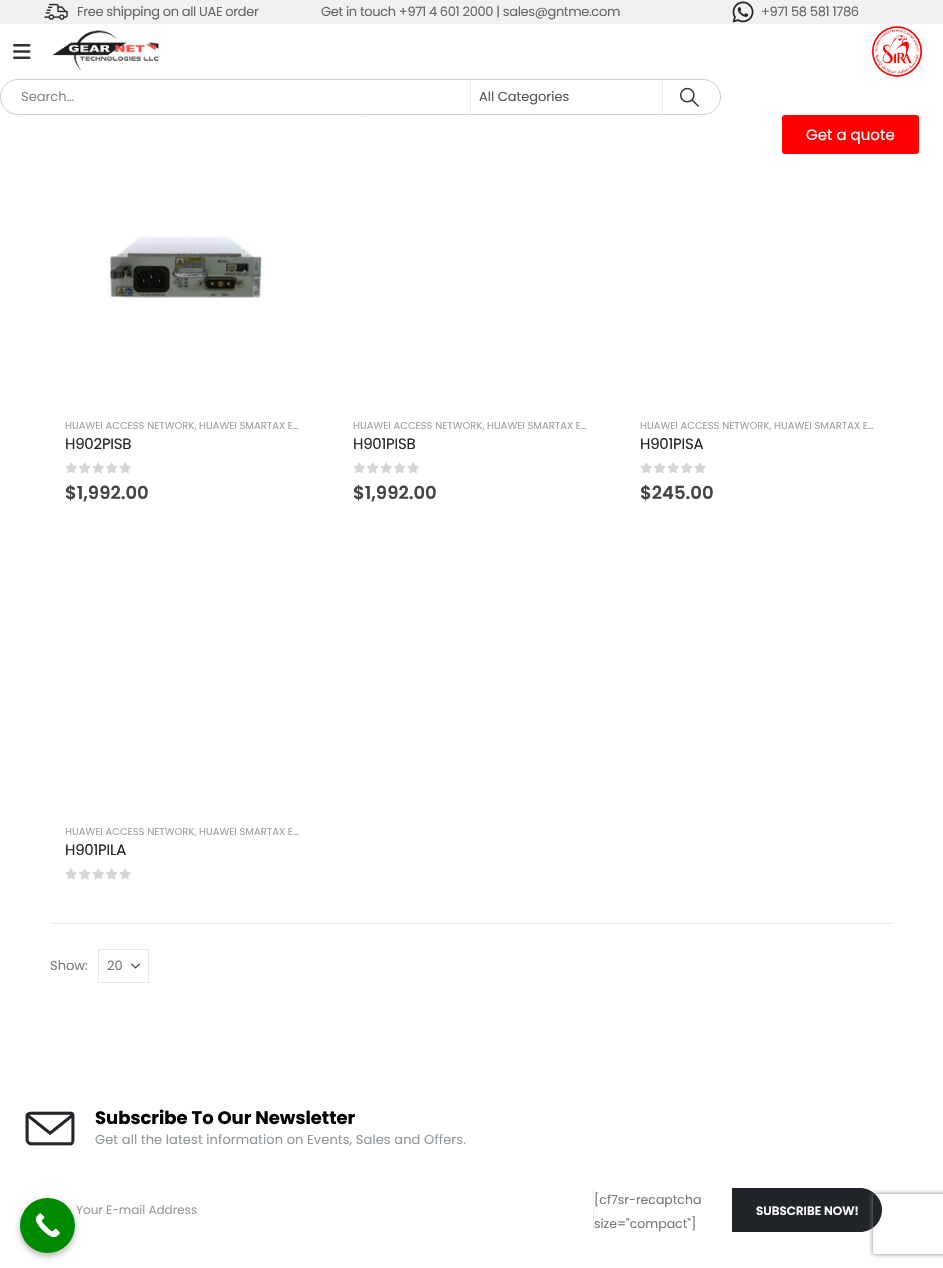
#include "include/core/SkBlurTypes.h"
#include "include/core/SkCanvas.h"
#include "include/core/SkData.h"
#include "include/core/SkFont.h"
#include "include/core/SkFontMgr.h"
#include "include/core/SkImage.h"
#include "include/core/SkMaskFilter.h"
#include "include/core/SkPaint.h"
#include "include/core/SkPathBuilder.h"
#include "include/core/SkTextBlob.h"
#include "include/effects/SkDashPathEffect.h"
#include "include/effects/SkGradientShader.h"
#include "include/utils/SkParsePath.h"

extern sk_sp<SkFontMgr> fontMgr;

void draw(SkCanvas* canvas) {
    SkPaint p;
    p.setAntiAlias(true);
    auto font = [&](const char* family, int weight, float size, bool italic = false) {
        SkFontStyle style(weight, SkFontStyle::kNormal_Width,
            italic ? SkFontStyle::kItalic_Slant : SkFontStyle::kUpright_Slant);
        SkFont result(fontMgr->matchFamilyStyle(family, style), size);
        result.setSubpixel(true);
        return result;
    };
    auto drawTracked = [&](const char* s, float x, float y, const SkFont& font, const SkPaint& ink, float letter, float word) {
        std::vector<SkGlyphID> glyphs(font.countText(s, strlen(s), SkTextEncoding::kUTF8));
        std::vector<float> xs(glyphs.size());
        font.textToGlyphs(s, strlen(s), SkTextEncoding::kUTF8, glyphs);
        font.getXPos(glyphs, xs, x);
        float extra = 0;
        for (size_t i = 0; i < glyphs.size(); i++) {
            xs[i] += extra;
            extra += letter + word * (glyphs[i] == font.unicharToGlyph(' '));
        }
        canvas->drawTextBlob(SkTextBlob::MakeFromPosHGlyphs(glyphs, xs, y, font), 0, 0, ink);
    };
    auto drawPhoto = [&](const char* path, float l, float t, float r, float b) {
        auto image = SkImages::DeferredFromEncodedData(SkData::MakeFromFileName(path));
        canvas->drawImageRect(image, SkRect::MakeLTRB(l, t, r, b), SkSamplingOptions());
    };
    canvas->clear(0xFFFFFFFF);
    p.setColor(0xFFF1F1F1);
    canvas->drawRect(SkRect::MakeLTRB(0, 0, 943, 24), p);
    drawPhoto("media/1.png", 44, 3, 68, 20);
    auto font1 = font("Poppins", 400, 13);
    p.setColor(0xFF666666);
    drawTracked("Free shipping on all UAE order", 77, 16, font1, p, -0.35f, 0);
    drawTracked("Get in touch +971 4 601 2000 | sales@gntme.com", 321, 16, font1, p, -0.35f, 0);
    drawPhoto("media/2.png", 732, 1, 754, 23);
    drawTracked("+971 58 581 1786", 761, 16, font1, p, -0.35f, 0);
    drawPhoto("media/3.png", 13, 44, 31, 59);
    drawPhoto("media/4.png", 52, 30, 160, 71);
    drawPhoto("media/5.png", 872, 26, 922, 77);
    p.setStyle(SkPaint::kStroke_Style);
    p.setStrokeWidth(1);
    p.setColor(0xFFCCCCCC);
    canvas->drawRoundRect(SkRect::MakeLTRB(0.5f, 79.5f, 720.5f, 114.5f), 17.5f, 17.5f, p);
    p.setStyle(SkPaint::kFill_Style);
    p.setColor(0xFF888888);
    canvas->drawString("Search…", 21, 101, font1, p);
    p.setColor(0xFFEEEEEE);
    canvas->drawRect(SkRect::MakeLTRB(662, 80, 663, 114), p);
    canvas->drawRect(SkRect::MakeLTRB(470, 80, 471, 114), p);
    p.setColor(0xFF555555);
    canvas->drawString("All Categories", 479, 101, font1, p);
    drawPhoto("media/6.png", 680, 87, 699, 107);
    p.setColor(0xFFFF0000);
    canvas->drawRoundRect(SkRect::MakeLTRB(782, 115, 919, 154), 3, 3, p);
    auto font2 = font("Poppins", 400, 15);
    p.setColor(0xFFFFFFFF);
    canvas->drawString("Get a quote", 806, 140, font2, p);
    drawPhoto("media/7.png", 107, 234, 265, 301);
    auto font3 = font("Poppins", 400, 10);
    p.setColor(0xFFA0A0A0);
    canvas->drawString("HUAWEI ACCESS NETWORK, HUAWEI SMARTAX E…", 65, 429, font3, p);
    p.setColor(0xFF222529);
    drawTracked("H902PISB", 65, 449, font2, p, -0.25f, 0);
    drawPhoto("media/8.png", 65, 462, 131, 474);
    auto font4 = font("Poppins", 600, 18);
    p.setColor(0xFF444444);
    canvas->drawString("$1,992.00", 65, 499, font4, p);
    p.setColor(0xFFA0A0A0);
    canvas->drawString("HUAWEI ACCESS NETWORK, HUAWEI SMARTAX E…", 353, 429, font3, p);
    p.setColor(0xFF222529);
    drawTracked("H901PISB", 353, 449, font2, p, -0.25f, 0);
    drawPhoto("media/8.png", 353, 462, 419, 474);
    p.setColor(0xFF444444);
    canvas->drawString("$1,992.00", 353, 499, font4, p);
    p.setColor(0xFFA0A0A0);
    canvas->drawString("HUAWEI ACCESS NETWORK, HUAWEI SMARTAX E…", 640, 429, font3, p);
    p.setColor(0xFF222529);
    drawTracked("H901PISA", 640, 449, font2, p, -0.25f, 0);
    drawPhoto("media/8.png", 640, 462, 706, 474);
    p.setColor(0xFF444444);
    canvas->drawString("$245.00", 640, 499, font4, p);
    p.setColor(0xFFA0A0A0);
    canvas->drawString("HUAWEI ACCESS NETWORK, HUAWEI SMARTAX E…", 65, 835, font3, p);
    p.setColor(0xFF222529);
    drawTracked("H901PILA", 65, 855, font2, p, -0.25f, 0);
    drawPhoto("media/8.png", 65, 868, 131, 880);
    p.setColor(0xFFE7E7E7);
    canvas->drawRect(SkRect::MakeLTRB(50, 923, 893, 924), p);
    p.setColor(0xFF777777);
    canvas->drawString("Show:", 50, 970, font1, p);
    drawPhoto("media/9.png", 131, 963, 140, 969);
    p.setStyle(SkPaint::kStroke_Style);
    p.setColor(0xFFE7E7E7);
    canvas->drawRect(SkRect::MakeLTRB(98.5f, 949.5f, 148.5f, 982.5f), p);
    p.setStyle(SkPaint::kFill_Style);
    p.setColor(0xFF777777);
    canvas->drawString("20", 107, 970, font1, p);
    drawPhoto("media/10.png", 25, 1111, 75, 1146);
    auto font5 = font("Poppins", 700, 18);
    p.setColor(0xFF000000);
    canvas->drawString("Subscribe To Our Newsletter", 95, 1124, font5, p);
    p.setColor(0xFF90969A);
    drawTracked("Get all the latest information on Events, Sales and Offers.", 95, 1144, font1, p, 0.1f, 0);
    auto font6 = font("Poppins", 400, 12.5f);
    p.setColor(0xFF777777);
    canvas->drawString("[cf7sr-recaptcha", 594, 1204, font6, p);
    p.setColor(0xFFEBEBEB);
    canvas->drawRect(SkRect::MakeLTRB(593, 1188, 594, 1232), p);
    auto font7 = font("Poppins", 400, 12);
    p.setColor(0xFF999999);
    canvas->drawString("Your E-mail Address", 76, 1214, font7, p);
    p.setColor(0xFF212529);
    canvas->drawPath(SkPathBuilder().moveTo(732, 1188).lineTo(860, 1188).cubicTo(872, 1188, 882, 1198, 882, 1210).cubicTo(882, 1222, 872, 1232, 860, 1232).lineTo(732, 1232).close().detach(), p);
    auto font8 = font("Poppins", 600, 12);
    p.setColor(0xFFFFFFFF);
    canvas->drawString("SUBSCRIBE NOW!", 756, 1215, font8, p);
    p.setColor(0xFF777777);
    canvas->drawString("size=\"compact\"]", 594, 1228, font6, p);
    canvas->save();
    canvas->clipPath(SkPathBuilder(SkPathFillType::kEvenOdd).moveTo(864, 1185).lineTo(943, 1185).lineTo(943, 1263).lineTo(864, 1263).close().moveTo(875, 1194).lineTo(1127, 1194).cubicTo(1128, 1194, 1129, 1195, 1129, 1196).lineTo(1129, 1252).cubicTo(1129, 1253, 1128, 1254, 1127, 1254).lineTo(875, 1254).cubicTo(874, 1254, 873, 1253, 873, 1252).lineTo(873, 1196).cubicTo(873, 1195, 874, 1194, 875, 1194).close().detach(), true);
    p.setColor(0xFF808080);
    p.setMaskFilter(SkMaskFilter::MakeBlur(kNormal_SkBlurStyle, 2.5f));
    canvas->drawRoundRect(SkRect::MakeLTRB(873, 1194, 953, 1254), 2, 2, p);
    p.setMaskFilter(nullptr);
    canvas->restore();
    p.setColor(0x4D000000);
    p.setMaskFilter(SkMaskFilter::MakeBlur(kNormal_SkBlurStyle, 3));
    canvas->drawRoundRect(SkRect::MakeLTRB(20, 1201, 75, 1256), 27.5f, 27.5f, p);
    p.setMaskFilter(nullptr);
    p.setColor(0xFF008A00);
    canvas->drawCircle(47.5f, 1225.5f, 27.5f, p);
    drawPhoto("media/11.png", 35, 1213, 60, 1238);
}
